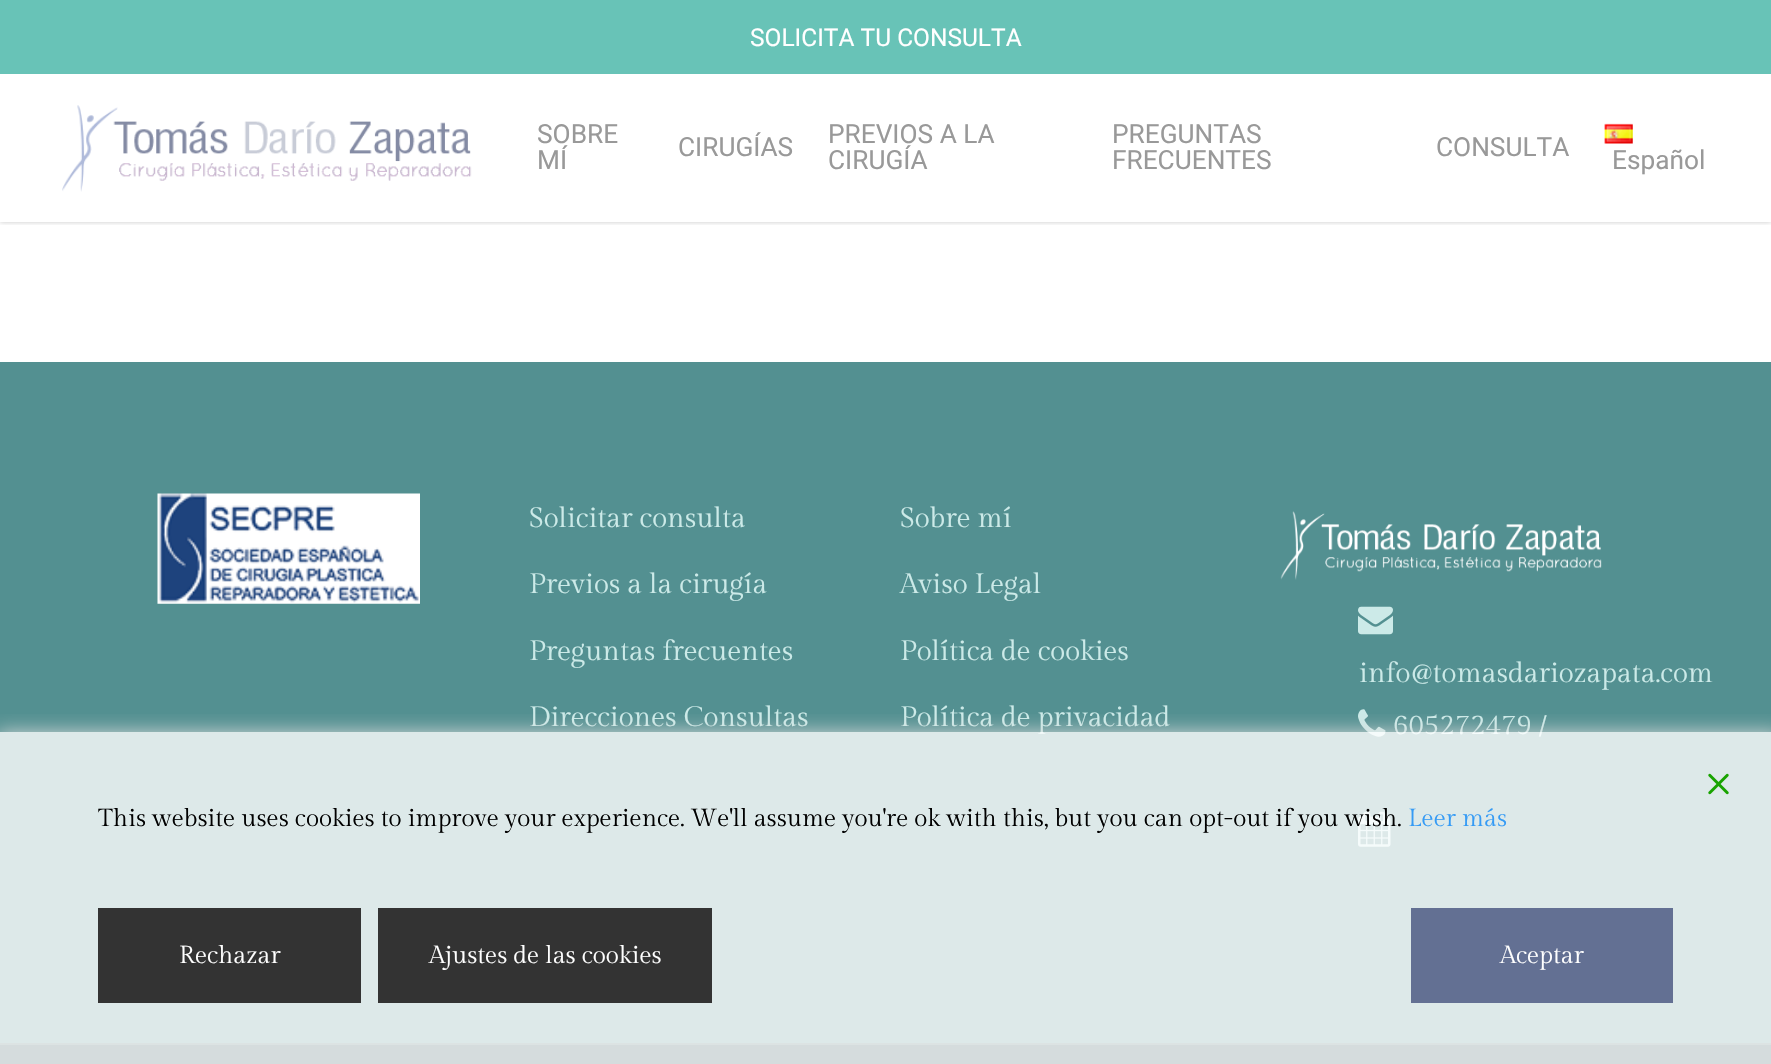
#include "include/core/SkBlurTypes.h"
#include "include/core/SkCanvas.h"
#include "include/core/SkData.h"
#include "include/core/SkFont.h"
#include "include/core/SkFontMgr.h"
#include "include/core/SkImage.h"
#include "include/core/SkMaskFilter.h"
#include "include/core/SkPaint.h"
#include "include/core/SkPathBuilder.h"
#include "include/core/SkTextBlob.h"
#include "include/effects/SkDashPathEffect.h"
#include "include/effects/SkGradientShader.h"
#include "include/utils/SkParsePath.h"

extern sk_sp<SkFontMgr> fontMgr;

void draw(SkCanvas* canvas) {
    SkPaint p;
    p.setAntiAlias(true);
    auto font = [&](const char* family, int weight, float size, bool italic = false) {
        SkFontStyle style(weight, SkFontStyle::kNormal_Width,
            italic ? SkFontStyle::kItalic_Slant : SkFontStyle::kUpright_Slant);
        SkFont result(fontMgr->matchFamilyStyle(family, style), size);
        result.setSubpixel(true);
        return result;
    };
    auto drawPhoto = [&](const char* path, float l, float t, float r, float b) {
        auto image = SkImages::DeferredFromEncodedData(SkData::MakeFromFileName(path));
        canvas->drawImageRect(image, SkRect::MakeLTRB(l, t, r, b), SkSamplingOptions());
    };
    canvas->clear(0xFFFFFFFF);
    canvas->save();
    canvas->clipRect(SkRect::MakeLTRB(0, 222, 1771, 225));
    p.setColor(0x38000000);
    p.setMaskFilter(SkMaskFilter::MakeBlur(kNormal_SkBlurStyle, 2.5f));
    canvas->drawRect(SkRect::MakeLTRB(0, 0, 1771, 222), p);
    p.setMaskFilter(nullptr);
    canvas->restore();
    p.setColor(0xFF68C3B7);
    canvas->drawRect(SkRect::MakeLTRB(0, 0, 1771, 74), p);
    auto font1 = font("Roboto", 400, 24.5f);
    p.setColor(0xFFFFFFFF);
    canvas->drawString("SOLICITA TU CONSULTA", 750, 46, font1, p);
    drawPhoto("media/1.png", 62, 105, 472, 192);
    auto font2 = font("Roboto", 400, 26.25f);
    p.setColor(0xFF999999);
    {
        const struct { const char* s; float x, y; } items[] = {
            {"SOBRE", 537, 143},
            {"MÍ", 537, 169},
            {"CIRUGÍAS", 678, 156},
            {"PREVIOS A LA", 828, 143},
            {"CIRUGÍA", 828, 169},
            {"PREGUNTAS", 1112, 143},
            {"FRECUENTES", 1112, 169},
            {"CONSULTA", 1436, 156},
        };
        for (auto [s, x, y] : items) {
            canvas->drawString(s, x, y, font2, p);
        }
    }
    drawPhoto("media/2.png", 1604, 123, 1633, 144);
    canvas->drawString("Español", 1612, 169, font2, p);
    p.setColor(0xFF539091);
    canvas->drawRect(SkRect::MakeLTRB(0, 362, 1771, 1043), p);
    drawPhoto("media/3.png", 157, 493, 420, 604);
    auto font3 = font("Gilda Display", 400, 28);
    p.setColor(0xFFCCEAE8);
    {
        const struct { const char* s; float x, y; } items[] = {
            {"Solicitar consulta", 529, 527},
            {"Previos a la cirugía", 529, 593},
            {"Preguntas frecuentes", 529, 660},
            {"Direcciones Consultas", 529, 726},
            {"Sobre mí", 900, 527},
            {"Aviso Legal", 900, 593},
            {"Política de cookies", 900, 660},
            {"Política de privacidad", 900, 726},
        };
        for (auto [s, x, y] : items) {
            canvas->drawString(s, x, y, font3, p);
        }
    }
    drawPhoto("media/4.png", 1280, 511, 1602, 580);
    drawPhoto("media/5.png", 1358, 606, 1393, 635);
    canvas->drawString("info@tomasdariozapata.com", 1359, 682, font3, p);
    drawPhoto("media/6.png", 1358, 709, 1386, 737);
    canvas->drawString("605272479 /", 1393, 734, font3, p);
    drawPhoto("media/7.png", 1358, 811, 1391, 847);
    p.setColor(0xFF2A4F54);
    canvas->drawRect(SkRect::MakeLTRB(0, 1045, 1771, 1064), p);
    p.setColor(0xFF506F73);
    canvas->drawRect(SkRect::MakeLTRB(0, 1043, 1771, 1045), p);
    canvas->save();
    canvas->clipRect(SkRect::MakeLTRB(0, 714, 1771, 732));
    p.setColor(0xFFDDDDDD);
    p.setMaskFilter(SkMaskFilter::MakeBlur(kNormal_SkBlurStyle, 9.5f));
    canvas->drawRect(SkRect::MakeLTRB(-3, 733, 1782, 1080), p);
    p.setMaskFilter(nullptr);
    canvas->restore();
    p.setColor(0xCCFFFFFF);
    canvas->drawRect(SkRect::MakeLTRB(0, 732, 1771, 1064), p);
    drawPhoto("media/8.png", 1708, 773, 1729, 795);
    auto font4 = font("Gilda Display", 400, 24.5f);
    p.setColor(0xFF000000);
    canvas->drawString("This website uses cookies to improve your experience. We'll assume you're ok with this, but you can opt-out if you wish.", 98, 826, font4, p);
    p.setColor(0xFF359BF5);
    canvas->drawString("Leer más", 1408, 826, font4, p);
    p.setColor(0xFF333333);
    canvas->drawRect(SkRect::MakeLTRB(98, 908, 361, 1003), p);
    p.setColor(0xFFFFFFFF);
    canvas->drawString("Rechazar", 179, 963, font4, p);
    p.setColor(0xFF333333);
    canvas->drawRect(SkRect::MakeLTRB(378, 908, 712, 1003), p);
    p.setColor(0xFFFFFFFF);
    canvas->drawString("Ajustes de las cookies", 429, 963, font4, p);
    p.setColor(0xFF637093);
    canvas->drawRect(SkRect::MakeLTRB(1411, 908, 1673, 1003), p);
    p.setColor(0xFFFFFFFF);
    canvas->drawString("Aceptar", 1500, 963, font4, p);
}
